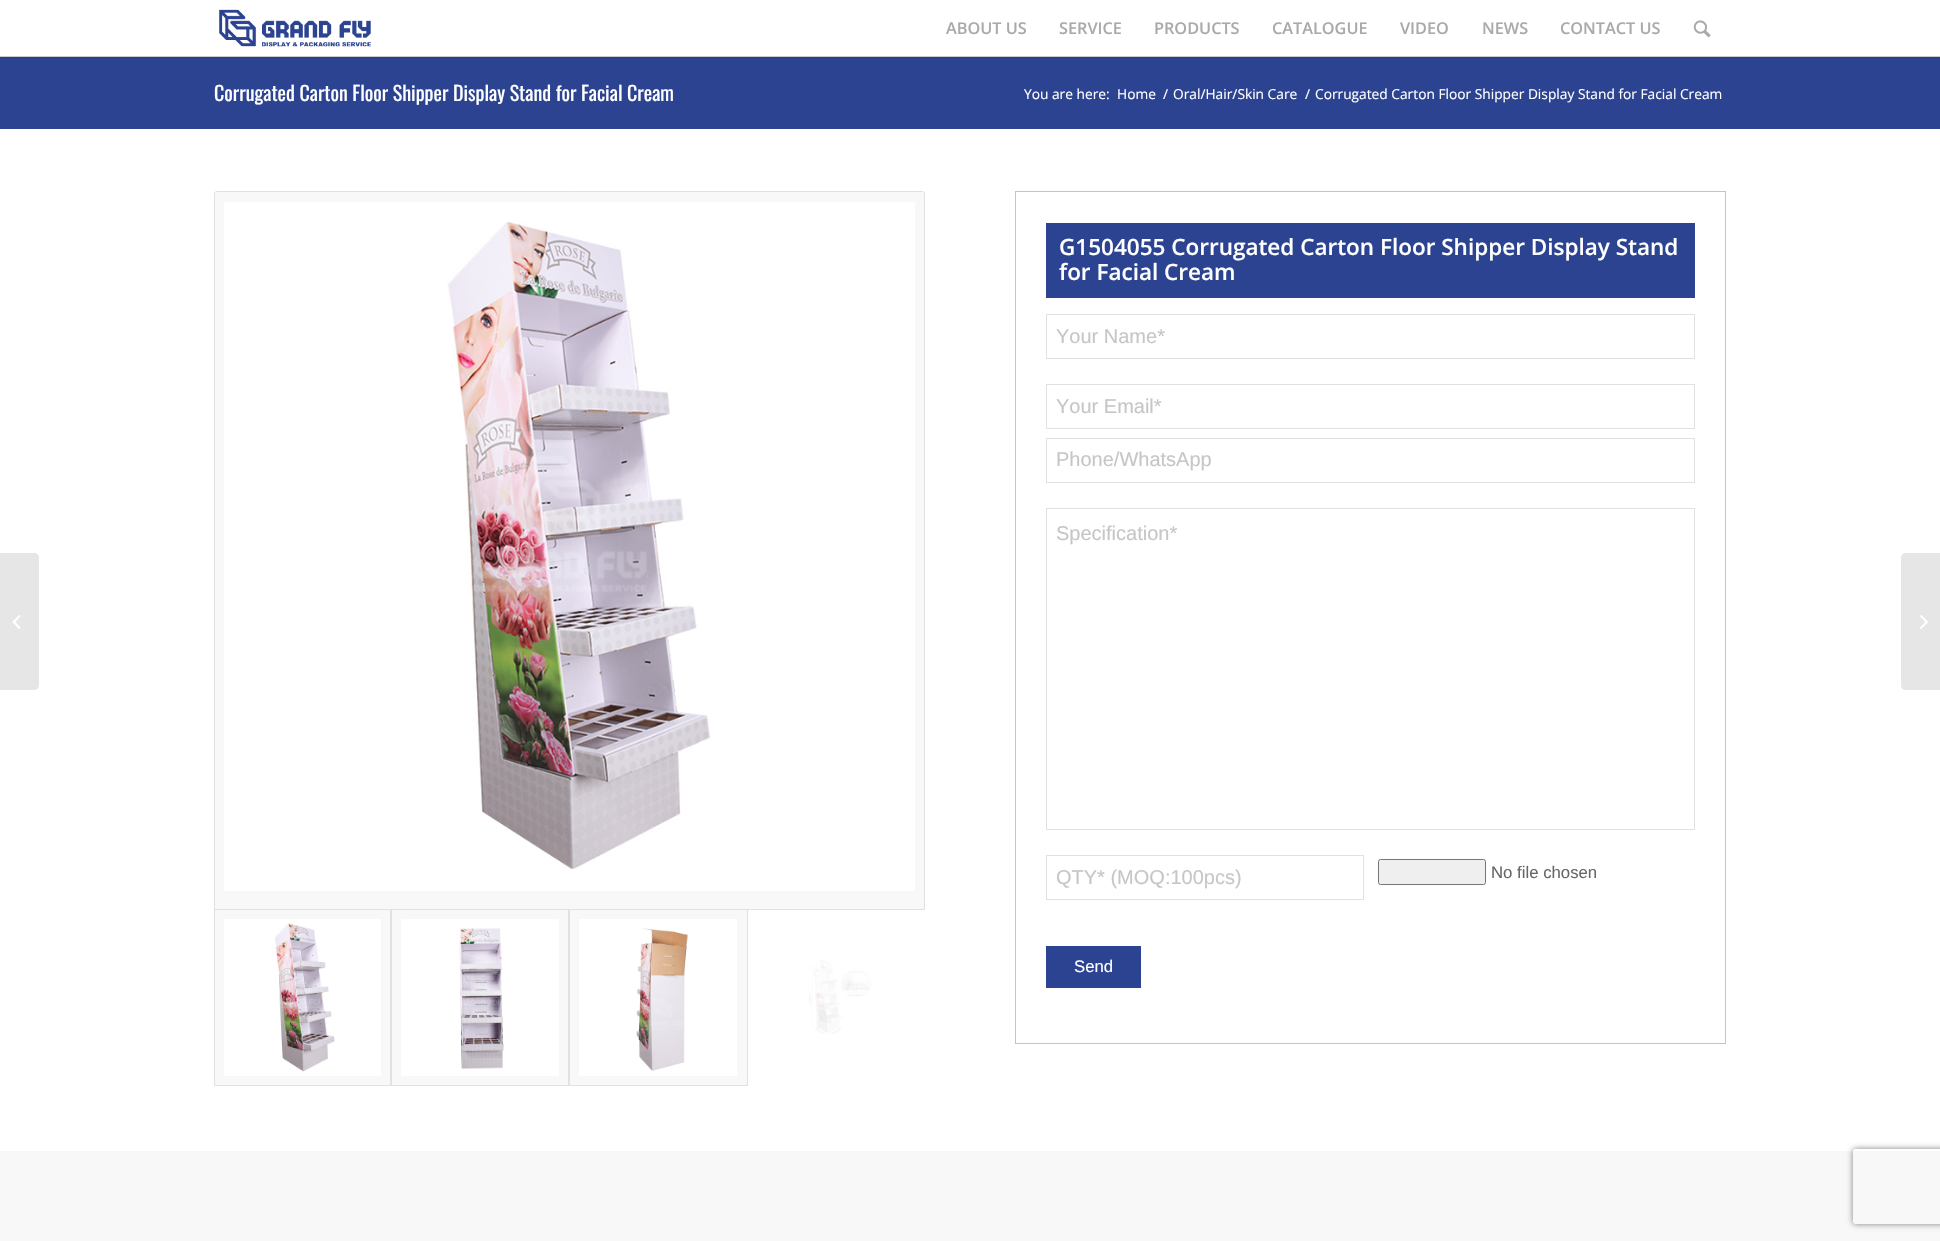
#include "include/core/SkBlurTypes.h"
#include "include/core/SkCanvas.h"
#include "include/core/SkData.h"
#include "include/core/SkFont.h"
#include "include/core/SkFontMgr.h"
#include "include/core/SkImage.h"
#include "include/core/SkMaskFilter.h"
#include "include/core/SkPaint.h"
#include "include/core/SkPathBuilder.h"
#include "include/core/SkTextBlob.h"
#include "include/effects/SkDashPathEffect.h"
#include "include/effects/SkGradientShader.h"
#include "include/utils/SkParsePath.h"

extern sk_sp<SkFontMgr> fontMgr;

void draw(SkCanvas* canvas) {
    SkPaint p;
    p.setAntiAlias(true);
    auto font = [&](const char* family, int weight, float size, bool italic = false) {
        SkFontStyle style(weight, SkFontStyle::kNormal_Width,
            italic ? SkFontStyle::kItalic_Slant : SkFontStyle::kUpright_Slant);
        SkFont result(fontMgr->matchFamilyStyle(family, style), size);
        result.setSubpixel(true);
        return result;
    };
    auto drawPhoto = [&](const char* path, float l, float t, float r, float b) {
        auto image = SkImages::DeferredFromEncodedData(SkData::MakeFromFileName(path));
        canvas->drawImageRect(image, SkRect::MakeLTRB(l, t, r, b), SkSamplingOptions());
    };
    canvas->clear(0xFFFFFFFF);
    p.setColor(0xFF2B4390);
    canvas->drawRect(SkRect::MakeLTRB(0, 57, 1940, 129), p);
    p.setColor(0xFFE1E1E1);
    canvas->drawRect(SkRect::MakeLTRB(0, 56, 1940, 57), p);
    canvas->save();
    canvas->clipRect(SkRect::MakeLTRB(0, 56, 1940, 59));
    p.setColor(0x1A000000);
    p.setMaskFilter(SkMaskFilter::MakeBlur(kNormal_SkBlurStyle, 1));
    canvas->drawRect(SkRect::MakeLTRB(-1, -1, 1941, 58), p);
    p.setMaskFilter(nullptr);
    canvas->restore();
    drawPhoto("media/1.png", 219, 9, 371, 47);
    auto font1 = font("Open Sans", 600, 16.25f);
    p.setColor(0xFFAAAAAA);
    {
        const struct { const char* s; float x, y; } items[] = {
            {"ABOUT US", 946, 34},
            {"SERVICE", 1059, 34},
            {"PRODUCTS", 1154, 34},
            {"CATALOGUE", 1272, 34},
            {"VIDEO", 1400, 34},
            {"NEWS", 1482, 34},
            {"CONTACT US", 1560, 34},
        };
        for (auto [s, x, y] : items) {
            canvas->drawString(s, x, y, font1, p);
        }
    }
    drawPhoto("media/2.png", 1693, 20, 1711, 38);
    p.setColor(0xFFE6E6E6);
    canvas->drawPath(SkPathBuilder().moveTo(0, 553).lineTo(34, 553).cubicTo(37, 553, 39, 555, 39, 558).lineTo(39, 685).cubicTo(39, 688, 37, 690, 34, 690).lineTo(0, 690).close().detach(), p);
    drawPhoto("media/3.png", 12, 615, 21, 629);
    auto font2 = font("Oswald", 400, 20);
    p.setColor(0xFFFFFFFF);
    canvas->drawString("Corrugated Carton Floor Shipper Display Stand for Facial Cream", 214, 101, font2, p);
    auto font3 = font("Open Sans", 400, 13.75f);
    {
        const struct { const char* s; float x, y; } items[] = {
            {"You are here:", 1024, 99},
            {"Home", 1117, 99},
            {"/", 1163, 99},
            {"Oral/Hair/Skin Care", 1173, 99},
            {"/", 1305, 99},
            {"Corrugated Carton Floor Shipper Display Stand for Facial Cream", 1315, 99},
        };
        for (auto [s, x, y] : items) {
            canvas->drawString(s, x, y, font3, p);
        }
    }
    p.setColor(0xFFF8F8F8);
    canvas->drawPath(SkPathBuilder().moveTo(216.5f, 191.5f).lineTo(922.5f, 191.5f).cubicTo(923.5f, 191.5f, 924.5f, 192.5f, 924.5f, 193.5f).lineTo(924.5f, 909.5f).lineTo(214.5f, 909.5f).lineTo(214.5f, 193.5f).cubicTo(214.5f, 192.5f, 215.5f, 191.5f, 216.5f, 191.5f).close().detach(), p);
    p.setStyle(SkPaint::kStroke_Style);
    p.setStrokeWidth(1);
    p.setColor(0xFFE1E1E1);
    canvas->drawPath(SkPathBuilder().moveTo(216.5f, 191.5f).lineTo(922.5f, 191.5f).cubicTo(923.5f, 191.5f, 924.5f, 192.5f, 924.5f, 193.5f).lineTo(924.5f, 909.5f).lineTo(214.5f, 909.5f).lineTo(214.5f, 193.5f).cubicTo(214.5f, 192.5f, 215.5f, 191.5f, 216.5f, 191.5f).close().detach(), p);
    drawPhoto("media/4.png", 224, 202, 915, 891);
    p.setStyle(SkPaint::kFill_Style);
    p.setColor(0xFFF8F8F8);
    canvas->drawRect(SkRect::MakeLTRB(214.5f, 909.5f, 390.5f, 1085.5f), p);
    p.setStyle(SkPaint::kStroke_Style);
    p.setColor(0xFFE1E1E1);
    canvas->drawRect(SkRect::MakeLTRB(214.5f, 909.5f, 390.5f, 1085.5f), p);
    drawPhoto("media/5.png", 224, 919, 381, 1076);
    p.setStyle(SkPaint::kFill_Style);
    p.setColor(0xFFF8F8F8);
    canvas->drawRect(SkRect::MakeLTRB(391.5f, 909.5f, 568.5f, 1085.5f), p);
    p.setStyle(SkPaint::kStroke_Style);
    p.setColor(0xFFE1E1E1);
    canvas->drawRect(SkRect::MakeLTRB(391.5f, 909.5f, 568.5f, 1085.5f), p);
    drawPhoto("media/6.png", 401, 919, 559, 1076);
    p.setStyle(SkPaint::kFill_Style);
    p.setColor(0xFFF8F8F8);
    canvas->drawRect(SkRect::MakeLTRB(569.5f, 909.5f, 747.5f, 1085.5f), p);
    p.setStyle(SkPaint::kStroke_Style);
    p.setColor(0xFFE1E1E1);
    canvas->drawRect(SkRect::MakeLTRB(569.5f, 909.5f, 747.5f, 1085.5f), p);
    drawPhoto("media/7.png", 579, 919, 737, 1076);
    drawPhoto("media/8.png", 809, 960, 871, 1035);
    p.setColor(0xFFC4C4C4);
    canvas->drawRect(SkRect::MakeLTRB(1015.5f, 191.5f, 1725.5f, 1043.5f), p);
    p.setStyle(SkPaint::kFill_Style);
    p.setColor(0xFF2B4390);
    canvas->drawRect(SkRect::MakeLTRB(1046, 223, 1695, 298), p);
    auto font4 = font("Open Sans", 600, 22.5f);
    p.setColor(0xFFFFFFFF);
    canvas->drawString("G1504055 Corrugated Carton Floor Shipper Display Stand", 1059, 255, font4, p);
    canvas->drawString("for Facial Cream", 1059, 280, font4, p);
    p.setStyle(SkPaint::kStroke_Style);
    p.setColor(0xFFE1E1E1);
    canvas->drawRect(SkRect::MakeLTRB(1046.5f, 314.5f, 1694.5f, 358.5f), p);
    auto font5 = font("Liberation Sans", 400, 20);
    p.setStyle(SkPaint::kFill_Style);
    p.setColor(0xFFC6C6C6);
    canvas->drawString("Your Name*", 1056, 343, font5, p);
    p.setStyle(SkPaint::kStroke_Style);
    p.setColor(0xFFE1E1E1);
    canvas->drawRect(SkRect::MakeLTRB(1046.5f, 384.5f, 1694.5f, 428.5f), p);
    p.setStyle(SkPaint::kFill_Style);
    p.setColor(0xFFC6C6C6);
    canvas->drawString("Your Email*", 1056, 413, font5, p);
    p.setStyle(SkPaint::kStroke_Style);
    p.setColor(0xFFE1E1E1);
    canvas->drawRect(SkRect::MakeLTRB(1046.5f, 438.5f, 1694.5f, 482.5f), p);
    p.setStyle(SkPaint::kFill_Style);
    p.setColor(0xFFC6C6C6);
    canvas->drawString("Phone/WhatsApp", 1056, 466, font5, p);
    p.setStyle(SkPaint::kStroke_Style);
    p.setColor(0xFFE1E1E1);
    canvas->drawRect(SkRect::MakeLTRB(1046.5f, 508.5f, 1694.5f, 829.5f), p);
    p.setStyle(SkPaint::kFill_Style);
    p.setColor(0xFFC6C6C6);
    canvas->drawString("Specification*", 1056, 540, font5, p);
    p.setStyle(SkPaint::kStroke_Style);
    p.setColor(0xFFE1E1E1);
    canvas->drawRect(SkRect::MakeLTRB(1046.5f, 855.5f, 1363.5f, 899.5f), p);
    p.setStyle(SkPaint::kFill_Style);
    p.setColor(0xFFC6C6C6);
    canvas->drawString("QTY* (MOQ:100pcs)", 1056, 884, font5, p);
    p.setColor(0xFFEFEFEF);
    canvas->drawRoundRect(SkRect::MakeLTRB(1378.5f, 859.5f, 1485.5f, 884.5f), 2, 2, p);
    p.setStyle(SkPaint::kStroke_Style);
    p.setColor(0xFF767676);
    canvas->drawRoundRect(SkRect::MakeLTRB(1378.5f, 859.5f, 1485.5f, 884.5f), 2, 2, p);
    auto font6 = font("Liberation Sans", 400, 16.75f);
    p.setStyle(SkPaint::kFill_Style);
    p.setColor(0xFF666666);
    canvas->drawString("No file chosen", 1491, 878, font6, p);
    p.setColor(0xFF2B4390);
    canvas->drawRect(SkRect::MakeLTRB(1046, 946, 1141, 988), p);
    p.setColor(0xFFFFFFFF);
    canvas->drawString("Send", 1074, 972, font6, p);
    p.setColor(0xFFF8F8F8);
    canvas->drawRect(SkRect::MakeLTRB(0, 1151, 1940, 1241), p);
    p.setColor(0xFFE6E6E6);
    canvas->drawPath(SkPathBuilder().moveTo(1906, 553).lineTo(1940, 553).lineTo(1940, 690).lineTo(1906, 690).cubicTo(1903, 690, 1901, 688, 1901, 685).lineTo(1901, 558).cubicTo(1901, 555, 1903, 553, 1906, 553).close().detach(), p);
    drawPhoto("media/9.png", 1920, 615, 1928, 629);
    canvas->save();
    canvas->clipPath(SkPathBuilder(SkPathFillType::kEvenOdd).moveTo(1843, 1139).lineTo(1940, 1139).lineTo(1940, 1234).lineTo(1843, 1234).close().moveTo(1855.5f, 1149).lineTo(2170.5f, 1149).cubicTo(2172, 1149, 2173, 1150, 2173, 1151.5f).lineTo(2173, 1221.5f).cubicTo(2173, 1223, 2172, 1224, 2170.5f, 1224).lineTo(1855.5f, 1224).cubicTo(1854, 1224, 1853, 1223, 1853, 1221.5f).lineTo(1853, 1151.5f).cubicTo(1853, 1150, 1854, 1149, 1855.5f, 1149).close().detach(), true);
    p.setColor(0xFF808080);
    p.setMaskFilter(SkMaskFilter::MakeBlur(kNormal_SkBlurStyle, 3));
    canvas->drawRoundRect(SkRect::MakeLTRB(1853, 1149, 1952, 1224), 2.5f, 2.5f, p);
    p.setMaskFilter(nullptr);
    canvas->restore();
}
